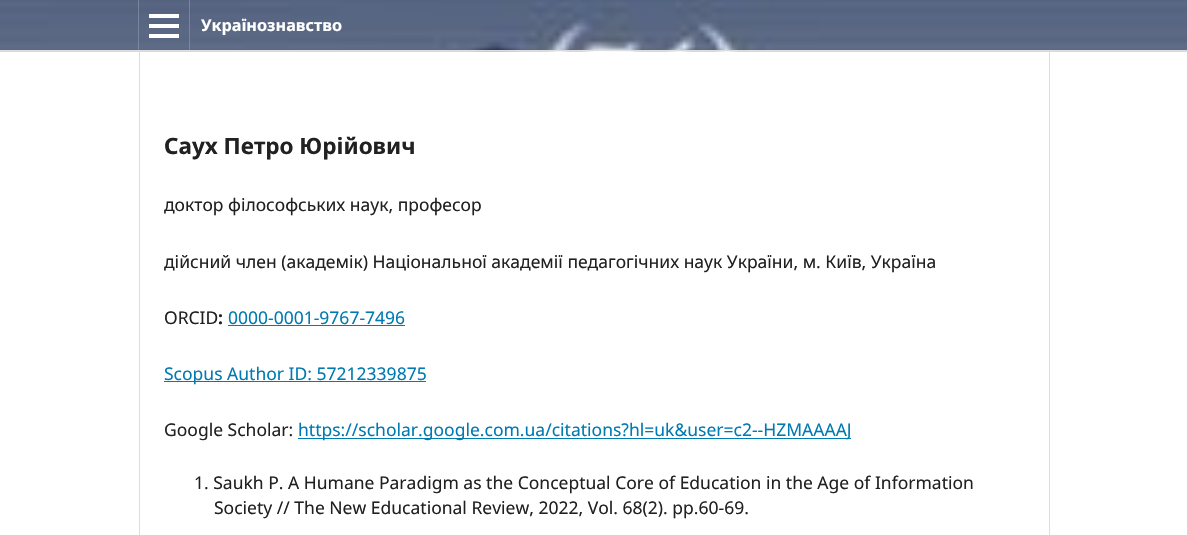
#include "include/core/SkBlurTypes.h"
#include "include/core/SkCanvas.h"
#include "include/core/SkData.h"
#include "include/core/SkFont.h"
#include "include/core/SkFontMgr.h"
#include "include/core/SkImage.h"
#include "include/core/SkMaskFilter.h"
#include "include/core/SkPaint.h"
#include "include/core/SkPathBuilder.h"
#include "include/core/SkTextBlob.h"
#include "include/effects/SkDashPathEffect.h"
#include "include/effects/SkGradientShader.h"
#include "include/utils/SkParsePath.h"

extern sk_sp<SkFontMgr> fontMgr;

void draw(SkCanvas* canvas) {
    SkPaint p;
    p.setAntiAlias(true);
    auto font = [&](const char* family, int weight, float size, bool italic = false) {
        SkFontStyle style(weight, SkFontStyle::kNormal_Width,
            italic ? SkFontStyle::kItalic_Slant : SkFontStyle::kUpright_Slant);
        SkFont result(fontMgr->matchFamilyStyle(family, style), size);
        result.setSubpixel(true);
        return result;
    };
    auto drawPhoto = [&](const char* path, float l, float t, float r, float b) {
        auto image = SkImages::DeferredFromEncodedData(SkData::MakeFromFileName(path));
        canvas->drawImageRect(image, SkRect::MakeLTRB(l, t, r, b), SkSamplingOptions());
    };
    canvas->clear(0xFFFFFFFF);
    drawPhoto("media/1.png", 0, 0, 1187, 52);
    {
        const struct { float l, t, r, b; SkColor color; } items[] = {
            {0, 50, 1187, 51, 0xFFDDDDDD},
            {138, 0, 139, 50, 0x33FFFFFF},
            {189, 0, 190, 50, 0x33FFFFFF},
            {149, 34, 179, 38, 0xFFFFFFFF},
            {149, 14, 179, 18, 0xFFFFFFFF},
            {149, 24, 179, 28, 0xFFFFFFFF},
        };
        for (auto [l, t, r, b, color] : items) {
            p.setColor(color);
            canvas->drawRect(SkRect::MakeLTRB(l, t, r, b), p);
        }
    }
    auto font1 = font("Noto Sans", 700, 16.25f);
    canvas->drawString("Українознавство", 201, 31, font1, p);
    p.setColor(0xFFDDDDDD);
    canvas->drawRect(SkRect::MakeLTRB(139, 51, 140, 535), p);
    auto font2 = font("Noto Sans", 700, 22.5f);
    p.setColor(0xFF212121);
    canvas->drawString("Саух Петро Юрійович", 164, 154, font2, p);
    p.setColor(0xFFDDDDDD);
    canvas->drawRect(SkRect::MakeLTRB(1049, 51, 1050, 535), p);
    auto font3 = font("Noto Sans", 400, 17.5f);
    p.setColor(0xFF212121);
    {
        const struct { const char* s; float x, y; } items[] = {
            {"доктор філософських наук, професор", 164, 211},
            {"дійсний член (академік) Національної академії педагогічних наук України, м. Київ, Україна", 164, 268},
            {"ORCID", 164, 324},
        };
        for (auto [s, x, y] : items) {
            canvas->drawString(s, x, y, font3, p);
        }
    }
    auto font4 = font("Noto Sans", 700, 17.5f);
    canvas->drawString(":", 218, 324, font4, p);
    p.setColor(0xFF007AB2);
    canvas->drawString("0000-0001-9767-7496", 228, 324, font3, p);
    canvas->drawRect(SkRect::MakeLTRB(228, 325, 405, 326), p);
    canvas->drawRect(SkRect::MakeLTRB(164, 381, 426, 382), p);
    canvas->drawString("Scopus Author ID: 57212339875", 164, 380, font3, p);
    p.setColor(0xFF212121);
    canvas->drawString("Google Scholar:", 164, 436, font3, p);
    p.setColor(0xFF007AB2);
    canvas->drawRect(SkRect::MakeLTRB(298, 438, 851, 439), p);
    canvas->drawString("https://scholar.google.com.ua/citations?hl=uk&user=c2--HZMAAAAJ", 298, 436, font3, p);
    p.setColor(0xFF212121);
    canvas->drawString("1. Saukh Р. A Humane Paradigm as the Conceptual Core of Education in the Age of Information", 194, 489, font3, p);
    canvas->drawString("Society // The New Educational Review, 2022, Vol. 68(2). pp.60-69.", 214, 514, font3, p);
}
